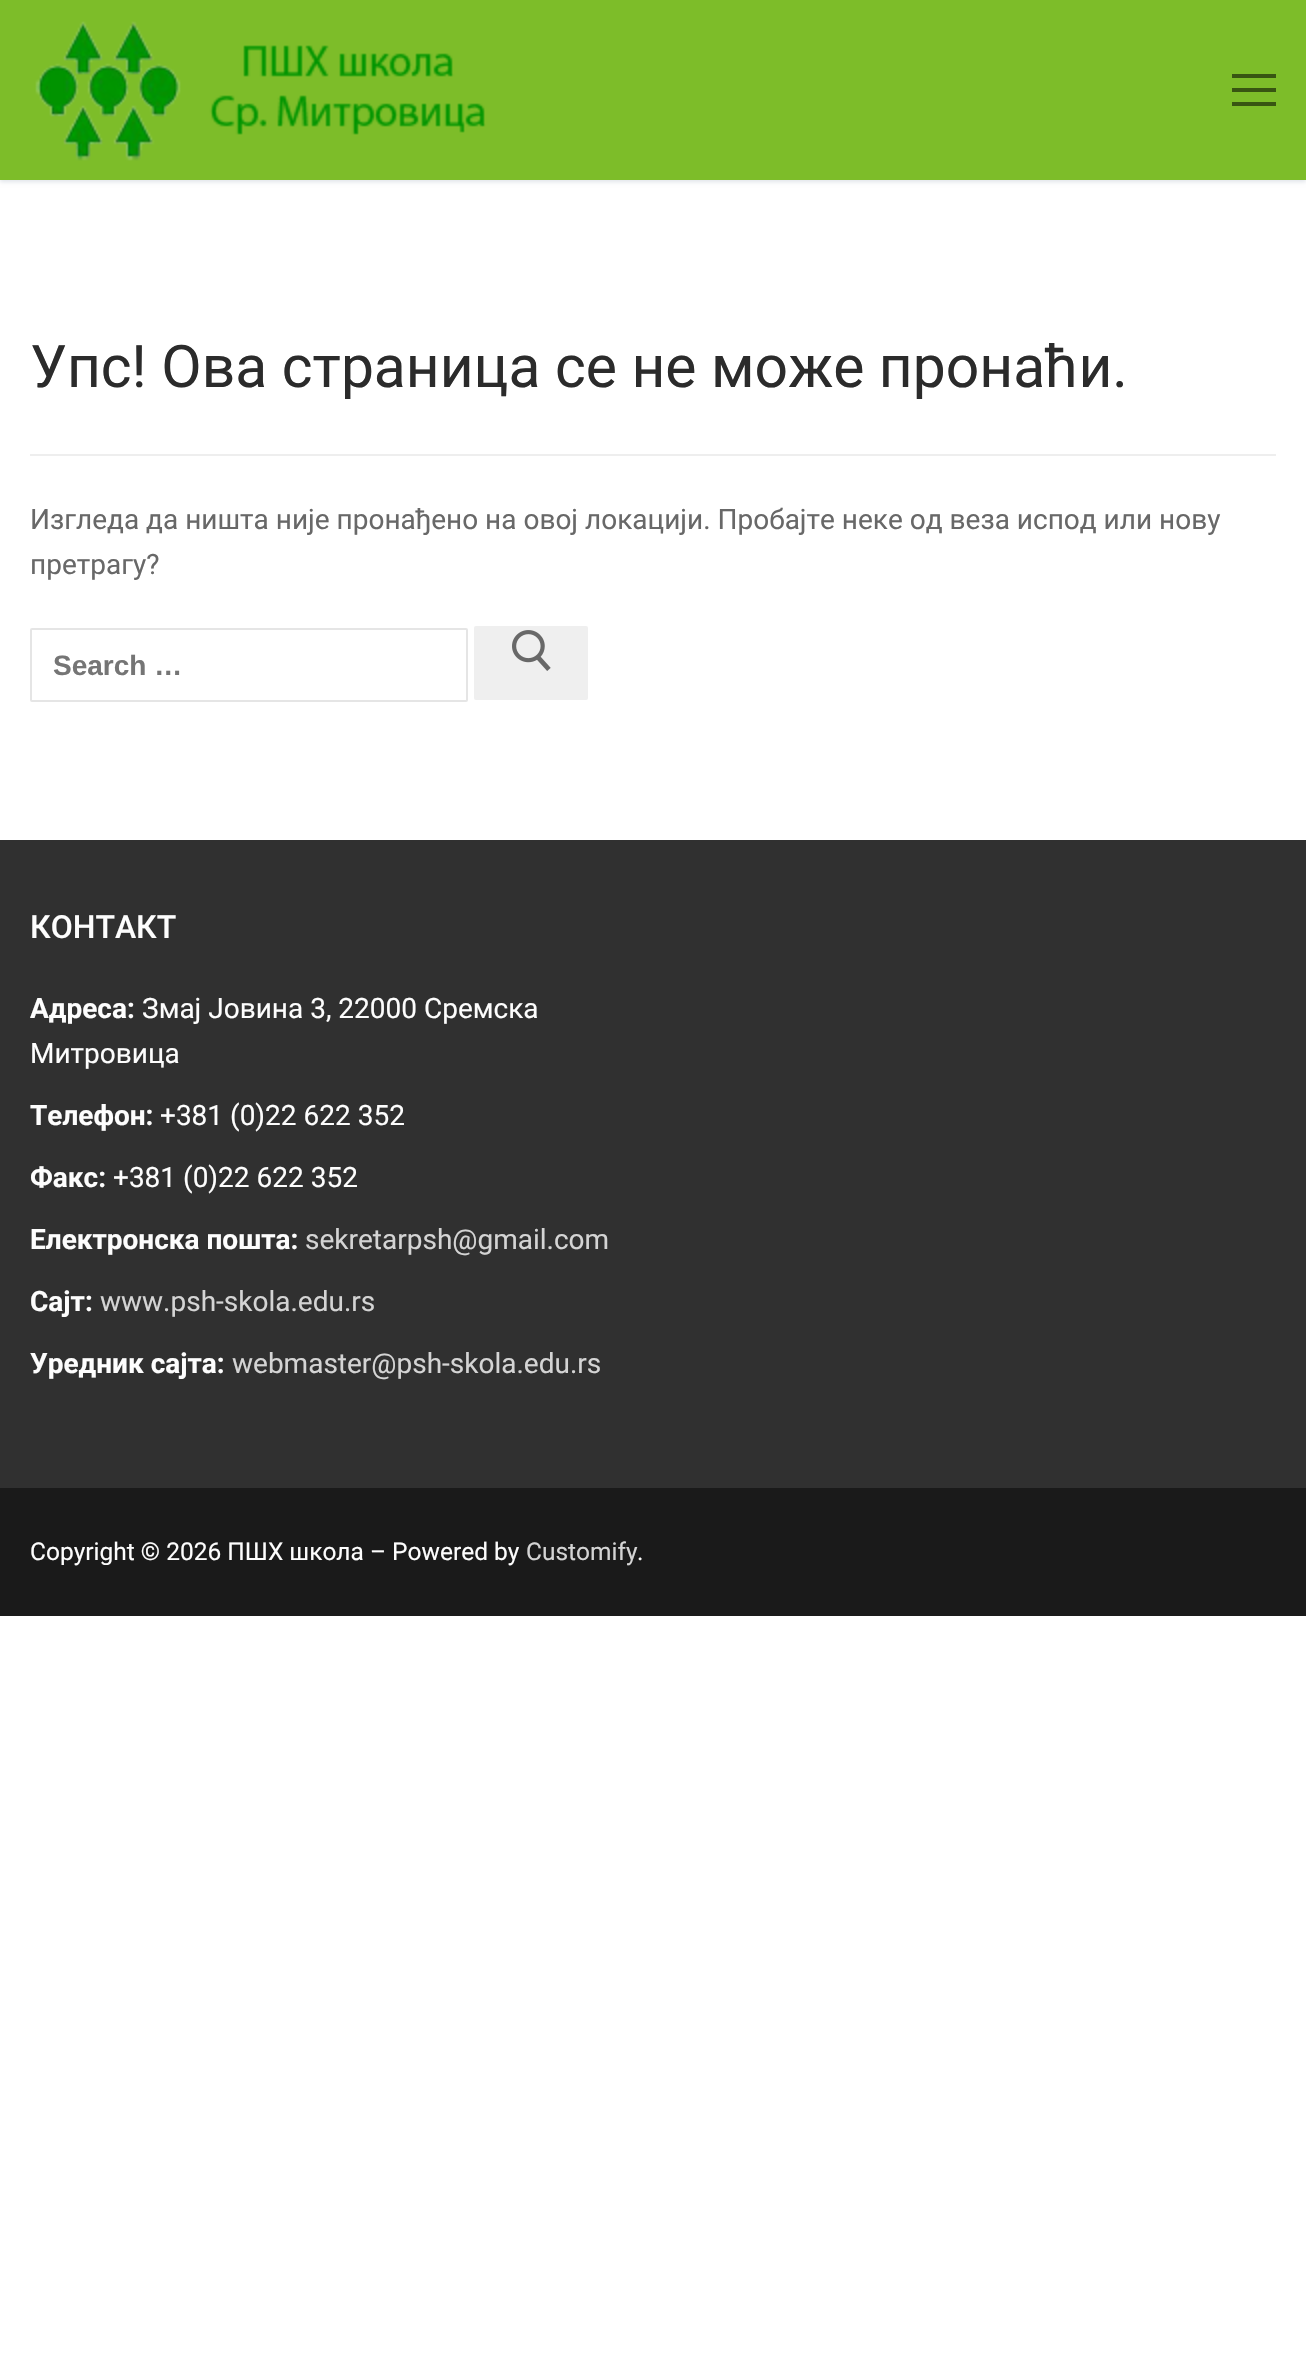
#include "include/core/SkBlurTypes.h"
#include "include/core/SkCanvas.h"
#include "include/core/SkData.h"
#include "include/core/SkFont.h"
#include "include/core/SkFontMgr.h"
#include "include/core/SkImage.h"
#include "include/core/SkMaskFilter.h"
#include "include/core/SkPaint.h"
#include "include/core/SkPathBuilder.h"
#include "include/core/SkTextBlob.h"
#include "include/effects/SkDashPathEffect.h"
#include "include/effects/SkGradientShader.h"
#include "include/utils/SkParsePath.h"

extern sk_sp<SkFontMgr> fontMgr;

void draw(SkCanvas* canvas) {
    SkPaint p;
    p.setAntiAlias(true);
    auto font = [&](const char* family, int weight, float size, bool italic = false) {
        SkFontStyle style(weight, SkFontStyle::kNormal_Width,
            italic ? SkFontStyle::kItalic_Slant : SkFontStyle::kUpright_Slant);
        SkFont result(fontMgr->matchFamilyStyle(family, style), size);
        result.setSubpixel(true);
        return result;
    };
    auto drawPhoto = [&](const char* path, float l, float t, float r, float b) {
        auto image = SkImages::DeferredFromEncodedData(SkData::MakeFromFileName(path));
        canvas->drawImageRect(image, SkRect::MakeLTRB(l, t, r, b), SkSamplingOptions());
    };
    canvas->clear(0xFFFFFFFF);
    p.setColor(0xFFE1E5EA);
    p.setMaskFilter(SkMaskFilter::MakeBlur(kNormal_SkBlurStyle, 2));
    canvas->drawRect(SkRect::MakeLTRB(0, 2, 1306, 182), p);
    p.setMaskFilter(nullptr);
    p.setColor(0xFF7DBD29);
    canvas->drawRect(SkRect::MakeLTRB(0, 0, 1306, 180), p);
    drawPhoto("media/1.png", 35, 21, 486, 161);
    {
        const struct { float l, t, r, b; SkColor color; } items[] = {
            {1232, 88, 1276, 92, 0xFF385512},
            {1232, 74, 1276, 78, 0xFF385512},
            {1232, 102, 1276, 106, 0xFF385512},
            {30, 454, 1276, 456, 0xFFEEEEEE},
        };
        for (auto [l, t, r, b, color] : items) {
            p.setColor(color);
            canvas->drawRect(SkRect::MakeLTRB(l, t, r, b), p);
        }
    }
    auto font1 = font("Roboto", 400, 58.75f);
    p.setColor(0xFF2B2B2B);
    canvas->drawString("Упс! Ова страница се не може пронаћи.", 30, 387, font1, p);
    auto font2 = font("Roboto", 400, 28);
    p.setColor(0xFF686868);
    canvas->drawString("Изгледа да ништа није пронађено на овој локацији. Пробајте неке од веза испод или нову", 30, 529, font2, p);
    canvas->drawString("претрагу?", 30, 574, font2, p);
    p.setStyle(SkPaint::kStroke_Style);
    p.setStrokeWidth(2);
    p.setColor(0xFFE5E5E5);
    canvas->drawRoundRect(SkRect::MakeLTRB(31, 629, 467, 701), 1, 1, p);
    auto font3 = font("Liberation Sans", 700, 28);
    p.setStyle(SkPaint::kFill_Style);
    p.setColor(0xFF757575);
    canvas->drawString("Search …", 53, 675, font3, p);
    p.setColor(0xFFEFEFEF);
    canvas->drawRoundRect(SkRect::MakeLTRB(474, 626, 588, 700), 2, 2, p);
    drawPhoto("media/2.png", 512, 630, 551, 671);
    p.setColor(0xFF303030);
    canvas->drawRect(SkRect::MakeLTRB(0, 840, 1306, 1488), p);
    auto font4 = font("Roboto", 500, 32);
    p.setColor(0xFFFDFDFD);
    canvas->drawString("КОНТАКТ", 30, 938, font4, p);
    auto font5 = font("Roboto", 700, 28);
    canvas->drawString("Адреса:", 30, 1018, font5, p);
    canvas->drawString("Змај Јовина 3, 22000 Сремска", 142, 1018, font2, p);
    canvas->drawString("Митровица", 30, 1063, font2, p);
    canvas->drawString("Телефон:", 30, 1125, font5, p);
    canvas->drawString("+381 (0)22 622 352", 160, 1125, font2, p);
    canvas->drawString("Факс:", 30, 1187, font5, p);
    canvas->drawString("+381 (0)22 622 352", 113, 1187, font2, p);
    canvas->drawString("Електронска пошта:", 30, 1249, font5, p);
    p.setColor(0xFFD4D4D4);
    canvas->drawString("sekretarpsh@gmail.com", 305, 1249, font2, p);
    p.setColor(0xFFFDFDFD);
    canvas->drawString("Сајт:", 30, 1311, font5, p);
    p.setColor(0xFFD4D4D4);
    canvas->drawString("www.psh-skola.edu.rs", 100, 1311, font2, p);
    p.setColor(0xFFFDFDFD);
    canvas->drawString("Уредник сајта:", 30, 1373, font5, p);
    p.setColor(0xFFD4D4D4);
    canvas->drawString("webmaster@psh-skola.edu.rs", 232, 1373, font2, p);
    p.setColor(0xFF1A1A1A);
    canvas->drawRect(SkRect::MakeLTRB(0, 1488, 1306, 1616), p);
    auto font6 = font("Roboto", 400, 24.5f);
    p.setColor(0xFFFDFDFD);
    canvas->drawString("Copyright © 2026 ПШХ школа – Powered by", 30, 1560, font6, p);
    p.setColor(0xFFD4D4D4);
    canvas->drawString("Customify", 526, 1560, font6, p);
    p.setColor(0xFFFDFDFD);
    canvas->drawString(".", 637, 1560, font6, p);
}
